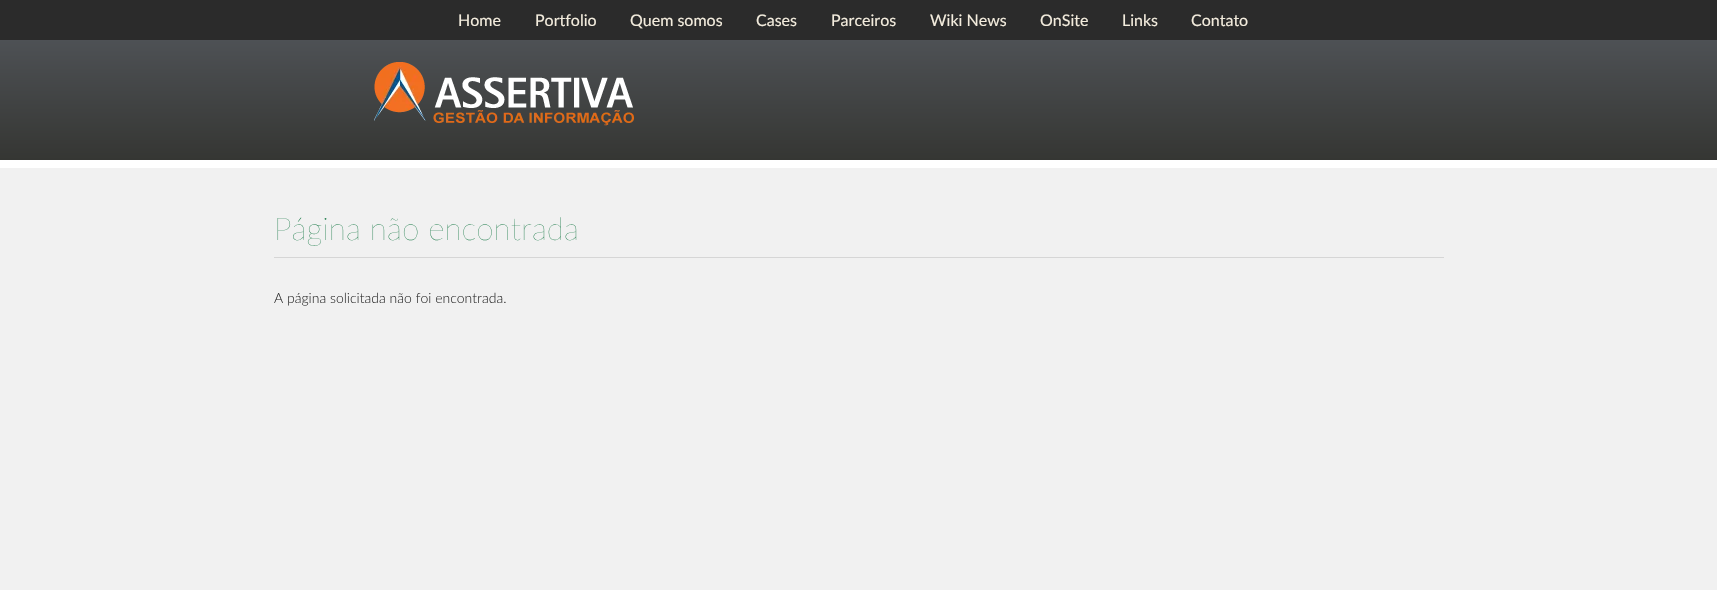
#include "include/core/SkBlurTypes.h"
#include "include/core/SkCanvas.h"
#include "include/core/SkData.h"
#include "include/core/SkFont.h"
#include "include/core/SkFontMgr.h"
#include "include/core/SkImage.h"
#include "include/core/SkMaskFilter.h"
#include "include/core/SkPaint.h"
#include "include/core/SkPathBuilder.h"
#include "include/core/SkTextBlob.h"
#include "include/effects/SkDashPathEffect.h"
#include "include/effects/SkGradientShader.h"
#include "include/utils/SkParsePath.h"

extern sk_sp<SkFontMgr> fontMgr;

void draw(SkCanvas* canvas) {
    SkPaint p;
    p.setAntiAlias(true);
    auto font = [&](const char* family, int weight, float size, bool italic = false) {
        SkFontStyle style(weight, SkFontStyle::kNormal_Width,
            italic ? SkFontStyle::kItalic_Slant : SkFontStyle::kUpright_Slant);
        SkFont result(fontMgr->matchFamilyStyle(family, style), size);
        result.setSubpixel(true);
        return result;
    };
    auto drawPhoto = [&](const char* path, float l, float t, float r, float b) {
        auto image = SkImages::DeferredFromEncodedData(SkData::MakeFromFileName(path));
        canvas->drawImageRect(image, SkRect::MakeLTRB(l, t, r, b), SkSamplingOptions());
    };
    canvas->clear(0xFFF1F1F1);
    {
        const SkColor colors[] = {0xFF565A60, 0xFF353633};
        const float stops[] = {0, 1};
        const SkPoint ends[] = {{859, 0}, {859, 160}};
        p.setShader(SkGradientShader::MakeLinear(ends, colors, stops, 2, SkTileMode::kClamp));
        p.setAlpha(255);
    }
    canvas->drawRect(SkRect::MakeLTRB(0, 40, 1717, 160), p);
    p.setShader(nullptr);
    p.setColor(0xFFFFFFFF);
    canvas->drawRect(SkRect::MakeLTRB(0, 160, 1717, 168), p);
    p.setColor(0xFF2B2B2B);
    canvas->drawRect(SkRect::MakeLTRB(0, 0, 1717, 40), p);
    auto font1 = font("Lato", 400, 16);
    p.setColor(0xFFF3ECDD);
    {
        const struct { const char* s; float x, y; } items[] = {
            {"Home", 458, 26},
            {"Portfolio", 535, 26},
            {"Quem somos", 630, 26},
            {"Cases", 756, 26},
            {"Parceiros", 831, 26},
            {"Wiki News", 930, 26},
            {"OnSite", 1040, 26},
            {"Links", 1122, 26},
            {"Contato", 1191, 26},
        };
        for (auto [s, x, y] : items) {
            canvas->drawString(s, x, y, font1, p);
        }
    }
    drawPhoto("media/1.png", 374, 62, 634, 126);
    p.setColor(0xFFD6D6D6);
    canvas->drawRect(SkRect::MakeLTRB(274, 257, 1444, 258), p);
    auto font2 = font("Lato", 200, 31.5f);
    p.setColor(0xFF2C8556);
    canvas->drawString("Página não encontrada", 274, 240, font2, p);
    auto font3 = font("Lato", 300, 14);
    p.setColor(0xFF333333);
    canvas->drawString("A página solicitada não foi encontrada.", 274, 303, font3, p);
}
